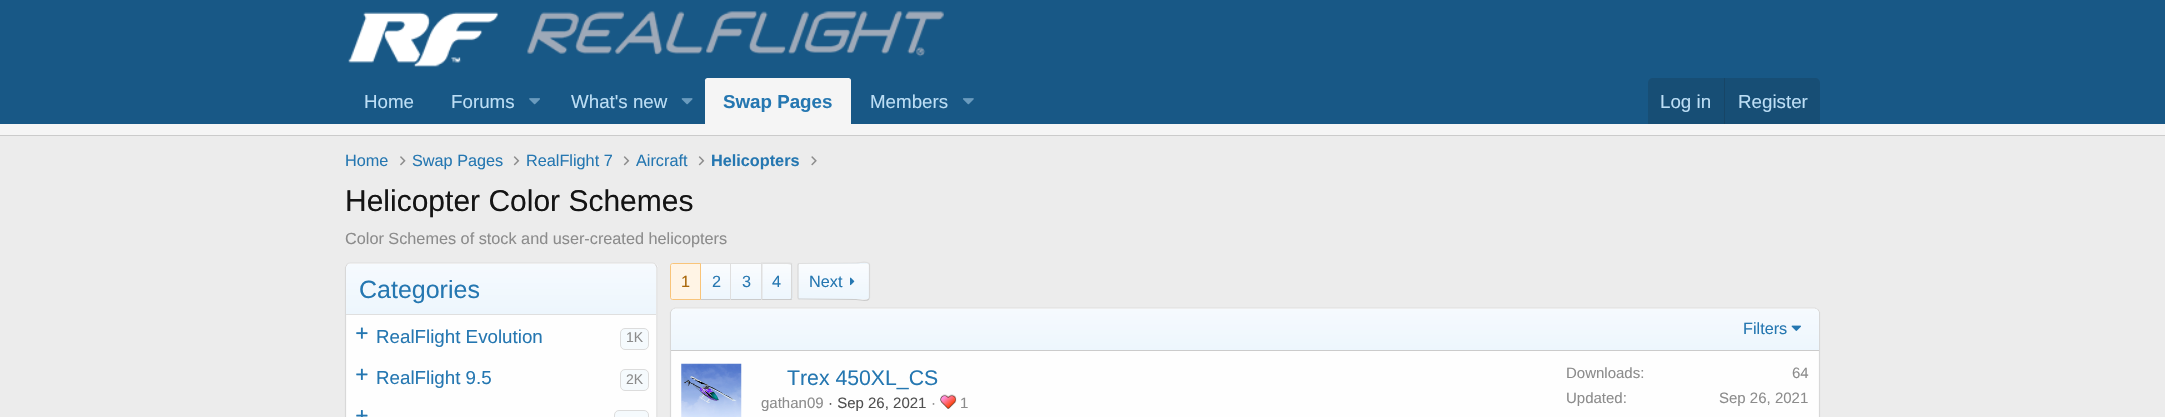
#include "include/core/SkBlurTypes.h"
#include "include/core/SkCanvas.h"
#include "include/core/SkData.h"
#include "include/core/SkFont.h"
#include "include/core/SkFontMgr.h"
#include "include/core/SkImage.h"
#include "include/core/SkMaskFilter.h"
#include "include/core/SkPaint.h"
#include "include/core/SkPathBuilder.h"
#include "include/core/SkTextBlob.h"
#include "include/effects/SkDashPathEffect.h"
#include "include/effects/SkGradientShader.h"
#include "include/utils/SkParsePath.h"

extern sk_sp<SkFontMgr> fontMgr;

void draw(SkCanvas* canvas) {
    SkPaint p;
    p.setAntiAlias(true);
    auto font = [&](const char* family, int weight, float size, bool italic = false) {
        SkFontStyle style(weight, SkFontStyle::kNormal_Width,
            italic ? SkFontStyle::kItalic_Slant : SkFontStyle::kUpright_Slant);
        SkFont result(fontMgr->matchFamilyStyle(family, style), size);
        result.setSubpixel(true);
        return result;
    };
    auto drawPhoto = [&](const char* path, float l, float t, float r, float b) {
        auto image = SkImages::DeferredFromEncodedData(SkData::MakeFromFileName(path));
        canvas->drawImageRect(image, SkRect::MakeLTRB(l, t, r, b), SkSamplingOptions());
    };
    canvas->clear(0xFFECECEC);
    p.setColor(0xFF185886);
    canvas->drawRect(SkRect::MakeLTRB(0, 0, 2165, 124), p);
    drawPhoto("media/1.png", 348, 11, 944, 67);
    auto font1 = font("Liberation Sans", 400, 18.75f);
    p.setColor(0xFFBCDEF5);
    canvas->drawString("Home", 364, 108, font1, p);
    canvas->drawString("Forums", 451, 108, font1, p);
    drawPhoto("media/2.png", 529, 98, 540, 105);
    canvas->drawString("What's new", 571, 108, font1, p);
    drawPhoto("media/3.png", 681, 98, 693, 105);
    p.setColor(0xFFF5F5F5);
    canvas->drawPath(SkPathBuilder().moveTo(707.5f, 78).lineTo(848.5f, 78).cubicTo(850, 78, 851, 79, 851, 80.5f).lineTo(851, 124).lineTo(705, 124).lineTo(705, 80.5f).cubicTo(705, 79, 706, 78, 707.5f, 78).close().detach(), p);
    auto font2 = font("Liberation Sans", 700, 18.75f);
    p.setColor(0xFF2577B1);
    canvas->drawString("Swap Pages", 723, 108, font2, p);
    p.setColor(0xFFBCDEF5);
    canvas->drawString("Members", 870, 108, font1, p);
    drawPhoto("media/4.png", 963, 98, 974, 105);
    p.setColor(0xFF174E75);
    canvas->drawPath(SkPathBuilder().moveTo(1653, 78).lineTo(1815, 78).cubicTo(1818, 78, 1820, 80, 1820, 83).lineTo(1820, 124).lineTo(1648, 124).lineTo(1648, 83).cubicTo(1648, 80, 1650, 78, 1653, 78).close().detach(), p);
    p.setColor(0xFFBCDEF5);
    canvas->drawString("Log in", 1660, 108, font1, p);
    p.setColor(0xFF174566);
    canvas->drawRect(SkRect::MakeLTRB(1724, 78, 1725, 124), p);
    p.setColor(0xFFBCDEF5);
    canvas->drawString("Register", 1738, 108, font1, p);
    p.setColor(0xFFF5F5F5);
    canvas->drawRect(SkRect::MakeLTRB(0, 124, 2165, 135), p);
    p.setColor(0xFFCBCBCB);
    canvas->drawRect(SkRect::MakeLTRB(0, 135, 2165, 136), p);
    auto font3 = font("Liberation Sans", 400, 16.25f);
    p.setColor(0xFF2577B1);
    canvas->drawString("Home", 345, 166, font3, p);
    drawPhoto("media/5.png", 400, 156, 406, 166);
    canvas->drawString("Swap Pages", 412, 166, font3, p);
    drawPhoto("media/6.png", 513, 156, 520, 166);
    canvas->drawString("RealFlight 7", 526, 166, font3, p);
    drawPhoto("media/6.png", 623, 156, 630, 166);
    canvas->drawString("Aircraft", 636, 166, font3, p);
    drawPhoto("media/6.png", 698, 156, 705, 166);
    auto font4 = font("Liberation Sans", 700, 16.25f);
    canvas->drawString("Helicopters", 711, 166, font4, p);
    drawPhoto("media/7.png", 811, 156, 817, 166);
    auto font5 = font("Liberation Sans", 400, 30);
    p.setColor(0xFF141414);
    canvas->drawString("Helicopter Color Schemes", 345, 211, font5, p);
    p.setColor(0xFF8C8C8C);
    canvas->drawString("Color Schemes of stock and user-created helicopters", 345, 244, font3, p);
    p.setColor(0xFFFEFEFE);
    canvas->drawRoundRect(SkRect::MakeLTRB(345, 263, 658, 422), 5, 5, p);
    p.setStyle(SkPaint::kStroke_Style);
    p.setStrokeWidth(1.2f);
    p.setColor(0xFFDFDFDF);
    canvas->drawPath(SkPathBuilder().moveTo(347, 264.5f).cubicTo(347.5f, 263.5f, 349, 263, 350, 263).lineTo(652.5f, 263).cubicTo(653.5f, 263, 655, 263.5f, 655.5f, 264.5f).detach(), p);
    p.setColor(0xFFD8D8D8);
    canvas->drawPath(SkPathBuilder().moveTo(655.5f, 264.5f).lineTo(657, 267.5f).lineTo(657, 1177.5f).lineTo(655.5f, 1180.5f).detach(), p);
    canvas->drawPath(SkPathBuilder().moveTo(347, 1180.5f).lineTo(345.5f, 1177.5f).lineTo(345.5f, 267.5f).lineTo(347, 264.5f).detach(), p);
    p.setStyle(SkPaint::kFill_Style);
    {
        const SkColor colors[] = {0xFFEDF6FD, 0xFFF6FAFE};
        const float stops[] = {0, 1};
        const SkPoint ends[] = {{501, 314}, {501, 264}};
        p.setShader(SkGradientShader::MakeLinear(ends, colors, stops, 2, SkTileMode::kClamp));
        p.setAlpha(255);
    }
    canvas->drawPath(SkPathBuilder().moveTo(350, 264).lineTo(652, 264).cubicTo(654, 264, 656, 266, 656, 268).lineTo(656, 314).lineTo(346, 314).lineTo(346, 268).cubicTo(346, 266, 348, 264, 350, 264).close().detach(), p);
    p.setShader(nullptr);
    p.setColor(0xFFDFDFDF);
    canvas->drawRect(SkRect::MakeLTRB(346, 314, 656, 315), p);
    auto font6 = font("Liberation Sans", 400, 25);
    p.setColor(0xFF2577B1);
    canvas->drawString("Categories", 359, 298, font6, p);
    drawPhoto("media/8.png", 356, 327, 368, 339);
    canvas->drawString("RealFlight Evolution", 376, 343, font1, p);
    p.setColor(0xFFF5FAFD);
    canvas->drawRoundRect(SkRect::MakeLTRB(620.5f, 328.5f, 648.5f, 349.5f), 4.5f, 4.5f, p);
    p.setStyle(SkPaint::kStroke_Style);
    p.setStrokeWidth(1);
    p.setColor(0xFFDCDCDC);
    canvas->drawRoundRect(SkRect::MakeLTRB(620.5f, 328.5f, 648.5f, 349.5f), 4.5f, 4.5f, p);
    auto font7 = font("Liberation Sans", 400, 14);
    p.setStyle(SkPaint::kFill_Style);
    p.setColor(0xFF8C8C8C);
    canvas->drawString("1K", 626, 342, font7, p);
    drawPhoto("media/9.png", 356, 368, 368, 380);
    p.setColor(0xFF2577B1);
    canvas->drawString("RealFlight 9.5", 376, 384, font1, p);
    p.setColor(0xFFF5FAFD);
    canvas->drawRoundRect(SkRect::MakeLTRB(620.5f, 369.5f, 648.5f, 390.5f), 4.5f, 4.5f, p);
    p.setStyle(SkPaint::kStroke_Style);
    p.setColor(0xFFDCDCDC);
    canvas->drawRoundRect(SkRect::MakeLTRB(620.5f, 369.5f, 648.5f, 390.5f), 4.5f, 4.5f, p);
    p.setStyle(SkPaint::kFill_Style);
    p.setColor(0xFF8C8C8C);
    canvas->drawString("2K", 626, 384, font7, p);
    drawPhoto("media/10.png", 356, 410, 368, 417);
    p.setColor(0xFFF5FAFD);
    canvas->drawRoundRect(SkRect::MakeLTRB(614.5f, 410.5f, 648.5f, 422.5f), 4.5f, 4.5f, p);
    p.setStyle(SkPaint::kStroke_Style);
    p.setColor(0xFFDCDCDC);
    canvas->drawRoundRect(SkRect::MakeLTRB(614.5f, 410.5f, 648.5f, 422.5f), 4.5f, 4.5f, p);
    p.setStyle(SkPaint::kFill_Style);
    p.setColor(0xFFFFF4E5);
    canvas->drawPath(SkPathBuilder().moveTo(672.5f, 263.5f).lineTo(700.5f, 263.5f).lineTo(700.5f, 299.5f).lineTo(672.5f, 299.5f).cubicTo(671.5f, 299.5f, 670.5f, 298.5f, 670.5f, 297.5f).lineTo(670.5f, 265.5f).cubicTo(670.5f, 264.5f, 671.5f, 263.5f, 672.5f, 263.5f).close().detach(), p);
    p.setStyle(SkPaint::kStroke_Style);
    p.setColor(0xFFF9C479);
    canvas->drawPath(SkPathBuilder().moveTo(672.5f, 263.5f).lineTo(700.5f, 263.5f).lineTo(700.5f, 299.5f).lineTo(672.5f, 299.5f).cubicTo(671.5f, 299.5f, 670.5f, 298.5f, 670.5f, 297.5f).lineTo(670.5f, 265.5f).cubicTo(670.5f, 264.5f, 671.5f, 263.5f, 672.5f, 263.5f).close().detach(), p);
    p.setStyle(SkPaint::kFill_Style);
    p.setColor(0xFFAA6709);
    canvas->drawString("1", 681, 287, font3, p);
    {
        const SkColor colors[] = {0xFFEDF6FD, 0xFFFAFCFE};
        const float stops[] = {0, 1};
        const SkPoint ends[] = {{716, 299}, {716, 264}};
        p.setShader(SkGradientShader::MakeLinear(ends, colors, stops, 2, SkTileMode::kClamp));
        p.setAlpha(255);
    }
    canvas->drawRect(SkRect::MakeLTRB(701, 264, 730, 299), p);
    p.setShader(nullptr);
    p.setColor(0xFFDFDFDF);
    canvas->drawRect(SkRect::MakeLTRB(701, 263, 761, 264), p);
    p.setColor(0xFFCBCBCB);
    canvas->drawRect(SkRect::MakeLTRB(701, 299, 761, 300), p);
    p.setColor(0xFF2577B1);
    canvas->drawString("2", 712, 287, font3, p);
    {
        const SkColor colors[] = {0xFFEDF6FD, 0xFFFAFCFE};
        const float stops[] = {0, 1};
        const SkPoint ends[] = {{746, 299}, {746, 264}};
        p.setShader(SkGradientShader::MakeLinear(ends, colors, stops, 2, SkTileMode::kClamp));
        p.setAlpha(255);
    }
    canvas->drawRect(SkRect::MakeLTRB(731, 264, 761, 299), p);
    p.setShader(nullptr);
    p.setColor(0xFFDFDFDF);
    canvas->drawRect(SkRect::MakeLTRB(730, 263, 731, 300), p);
    p.setColor(0xFF2577B1);
    canvas->drawString("3", 742, 287, font3, p);
    {
        const SkColor colors[] = {0xFFEDF6FD, 0xFFFAFCFE};
        const float stops[] = {0, 1};
        const SkPoint ends[] = {{777, 299}, {777, 264}};
        p.setShader(SkGradientShader::MakeLinear(ends, colors, stops, 2, SkTileMode::kClamp));
        p.setAlpha(255);
    }
    canvas->drawRect(SkRect::MakeLTRB(762, 264, 793, 299), p);
    p.setShader(nullptr);
    p.setColor(0xFFDFDFDF);
    canvas->drawPath(SkPathBuilder().moveTo(761, 262.5f).lineTo(763, 264).cubicTo(766, 264, 790, 263.5f, 790.5f, 264.5f).lineTo(792, 263).lineTo(790, 262.5f).close().detach(), p);
    p.setColor(0xFFD8D8D8);
    canvas->drawPath(SkPathBuilder().moveTo(792.5f, 297.5f).lineTo(792.5f, 265).cubicTo(792.5f, 264, 792, 263.5f, 792, 263).lineTo(790.5f, 264.5f).lineTo(791, 265).lineTo(791, 298.5f).lineTo(792, 299.5f).close().detach(), p);
    p.setColor(0xFFCBCBCB);
    canvas->drawPath(SkPathBuilder().moveTo(761, 300).lineTo(790, 300).cubicTo(791, 300, 791.5f, 300, 792, 299.5f).lineTo(791, 298.5f).lineTo(790, 299).lineTo(762.5f, 299).close().detach(), p);
    p.setColor(0xFFDFDFDF);
    canvas->drawPath(SkPathBuilder().moveTo(762.5f, 264).lineTo(763, 264).lineTo(761, 262.5f).lineTo(761, 300).lineTo(762.5f, 299).close().detach(), p);
    p.setColor(0xFF2577B1);
    canvas->drawString("4", 772, 287, font3, p);
    canvas->save();
    canvas->clipPath(SkPathBuilder().moveTo(800.5f, 263).lineTo(867.5f, 263).cubicTo(869, 263, 870, 264, 870, 265.5f).lineTo(870, 297.5f).cubicTo(870, 299, 869, 300, 867.5f, 300).lineTo(800.5f, 300).cubicTo(799, 300, 798, 299, 798, 297.5f).lineTo(798, 265.5f).cubicTo(798, 264, 799, 263, 800.5f, 263).close().detach(), true);
    {
        const SkColor colors[] = {0xFFEDF6FD, 0xFFFAFCFE};
        const float stops[] = {0, 1};
        const SkPoint ends[] = {{834, 264}, {834, 229}};
        p.setShader(SkGradientShader::MakeLinear(ends, colors, stops, 2, SkTileMode::kClamp));
        p.setAlpha(255);
    }
    canvas->drawRect(SkRect::MakeLTRB(798, 263, 870, 264), p);
    {
        const SkColor colors[] = {0xFFEDF6FD, 0xFFFAFCFE};
        const float stops[] = {0, 1};
        const SkPoint ends[] = {{834, 299}, {834, 264}};
        p.setShader(SkGradientShader::MakeLinear(ends, colors, stops, 2, SkTileMode::kClamp));
        p.setAlpha(255);
    }
    canvas->drawRect(SkRect::MakeLTRB(798, 264, 870, 299), p);
    {
        const SkColor colors[] = {0xFFEDF6FD, 0xFFFAFCFE};
        const float stops[] = {0, 1};
        const SkPoint ends[] = {{834, 334}, {834, 299}};
        p.setShader(SkGradientShader::MakeLinear(ends, colors, stops, 2, SkTileMode::kClamp));
        p.setAlpha(255);
    }
    canvas->drawRect(SkRect::MakeLTRB(798, 299, 870, 300), p);
    canvas->restore();
    p.setStyle(SkPaint::kStroke_Style);
    p.setStrokeWidth(1.2f);
    p.setShader(nullptr);
    p.setColor(0xFFDFDFDF);
    canvas->drawPath(SkPathBuilder().moveTo(798.5f, 263.5f).lineTo(856, 263).cubicTo(860.5f, 263, 866, 260.5f, 869, 263.5f).detach(), p);
    p.setColor(0xFFD8D8D8);
    canvas->drawPath(SkPathBuilder().moveTo(869, 263.5f).lineTo(869.5f, 265).lineTo(869.5f, 297.5f).lineTo(869, 299).detach(), p);
    p.setColor(0xFFCBCBCB);
    canvas->drawPath(SkPathBuilder().moveTo(869, 299).cubicTo(866, 302, 860.5f, 299.5f, 856, 299.5f).lineTo(798.5f, 299).detach(), p);
    p.setColor(0xFFD8D8D8);
    canvas->drawPath(SkPathBuilder().moveTo(798.5f, 299).lineTo(798, 297.5f).lineTo(798, 265).lineTo(798.5f, 263.5f).detach(), p);
    p.setStyle(SkPaint::kFill_Style);
    p.setColor(0xFF2577B1);
    canvas->drawString("Next", 809, 287, font3, p);
    drawPhoto("media/11.png", 850, 277, 855, 286);
    p.setColor(0xFFFEFEFE);
    canvas->drawRoundRect(SkRect::MakeLTRB(670, 308, 1820, 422), 5, 5, p);
    p.setStyle(SkPaint::kStroke_Style);
    p.setColor(0xFFDFDFDF);
    canvas->drawPath(SkPathBuilder().moveTo(672, 309.5f).lineTo(675, 308).lineTo(1815, 308).lineTo(1818, 309.5f).detach(), p);
    p.setColor(0xFFD8D8D8);
    canvas->drawPath(SkPathBuilder().moveTo(1818, 309.5f).lineTo(1819.5f, 312.5f).lineTo(1819.5f, 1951).lineTo(1818, 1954.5f).detach(), p);
    canvas->drawPath(SkPathBuilder().moveTo(672, 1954.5f).lineTo(670.5f, 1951).lineTo(670.5f, 312.5f).lineTo(672, 309.5f).detach(), p);
    p.setStyle(SkPaint::kFill_Style);
    {
        const SkColor colors[] = {0xFFEDF6FD, 0xFFF6FAFE};
        const float stops[] = {0, 1};
        const SkPoint ends[] = {{1245, 350}, {1245, 309}};
        p.setShader(SkGradientShader::MakeLinear(ends, colors, stops, 2, SkTileMode::kClamp));
        p.setAlpha(255);
    }
    canvas->drawPath(SkPathBuilder().moveTo(675, 309).lineTo(1815, 309).cubicTo(1817, 309, 1819, 311, 1819, 313).lineTo(1819, 350).lineTo(671, 350).lineTo(671, 313).cubicTo(671, 311, 673, 309, 675, 309).close().detach(), p);
    p.setShader(nullptr);
    p.setColor(0xFFCBCBCB);
    canvas->drawRect(SkRect::MakeLTRB(671, 350, 1819, 351), p);
    p.setColor(0xFF2577B1);
    canvas->drawString("Filters", 1743, 334, font3, p);
    drawPhoto("media/12.png", 1791, 325, 1801, 331);
    drawPhoto("media/13.png", 681, 363, 742, 417);
    auto font8 = font("Liberation Sans", 400, 21.25f);
    canvas->drawString("Trex 450XL_CS", 787, 385, font8, p);
    auto font9 = font("Liberation Sans", 400, 15);
    p.setColor(0xFF8C8C8C);
    canvas->drawString("gathan09", 761, 408, font9, p);
    p.setColor(0xFF505050);
    canvas->drawString("· Sep 26, 2021", 828, 408, font9, p);
    p.setColor(0xFF8C8C8C);
    canvas->drawString("·", 931, 408, font9, p);
    drawPhoto("media/14.png", 940, 394, 957, 409);
    {
        const struct { const char* s; float x, y; } items[] = {
            {"1", 960, 408},
            {"Downloads:", 1566, 378},
            {"64", 1792, 378},
            {"Updated:", 1566, 403},
            {"Sep 26, 2021", 1719, 403},
        };
        for (auto [s, x, y] : items) {
            canvas->drawString(s, x, y, font9, p);
        }
    }
}
